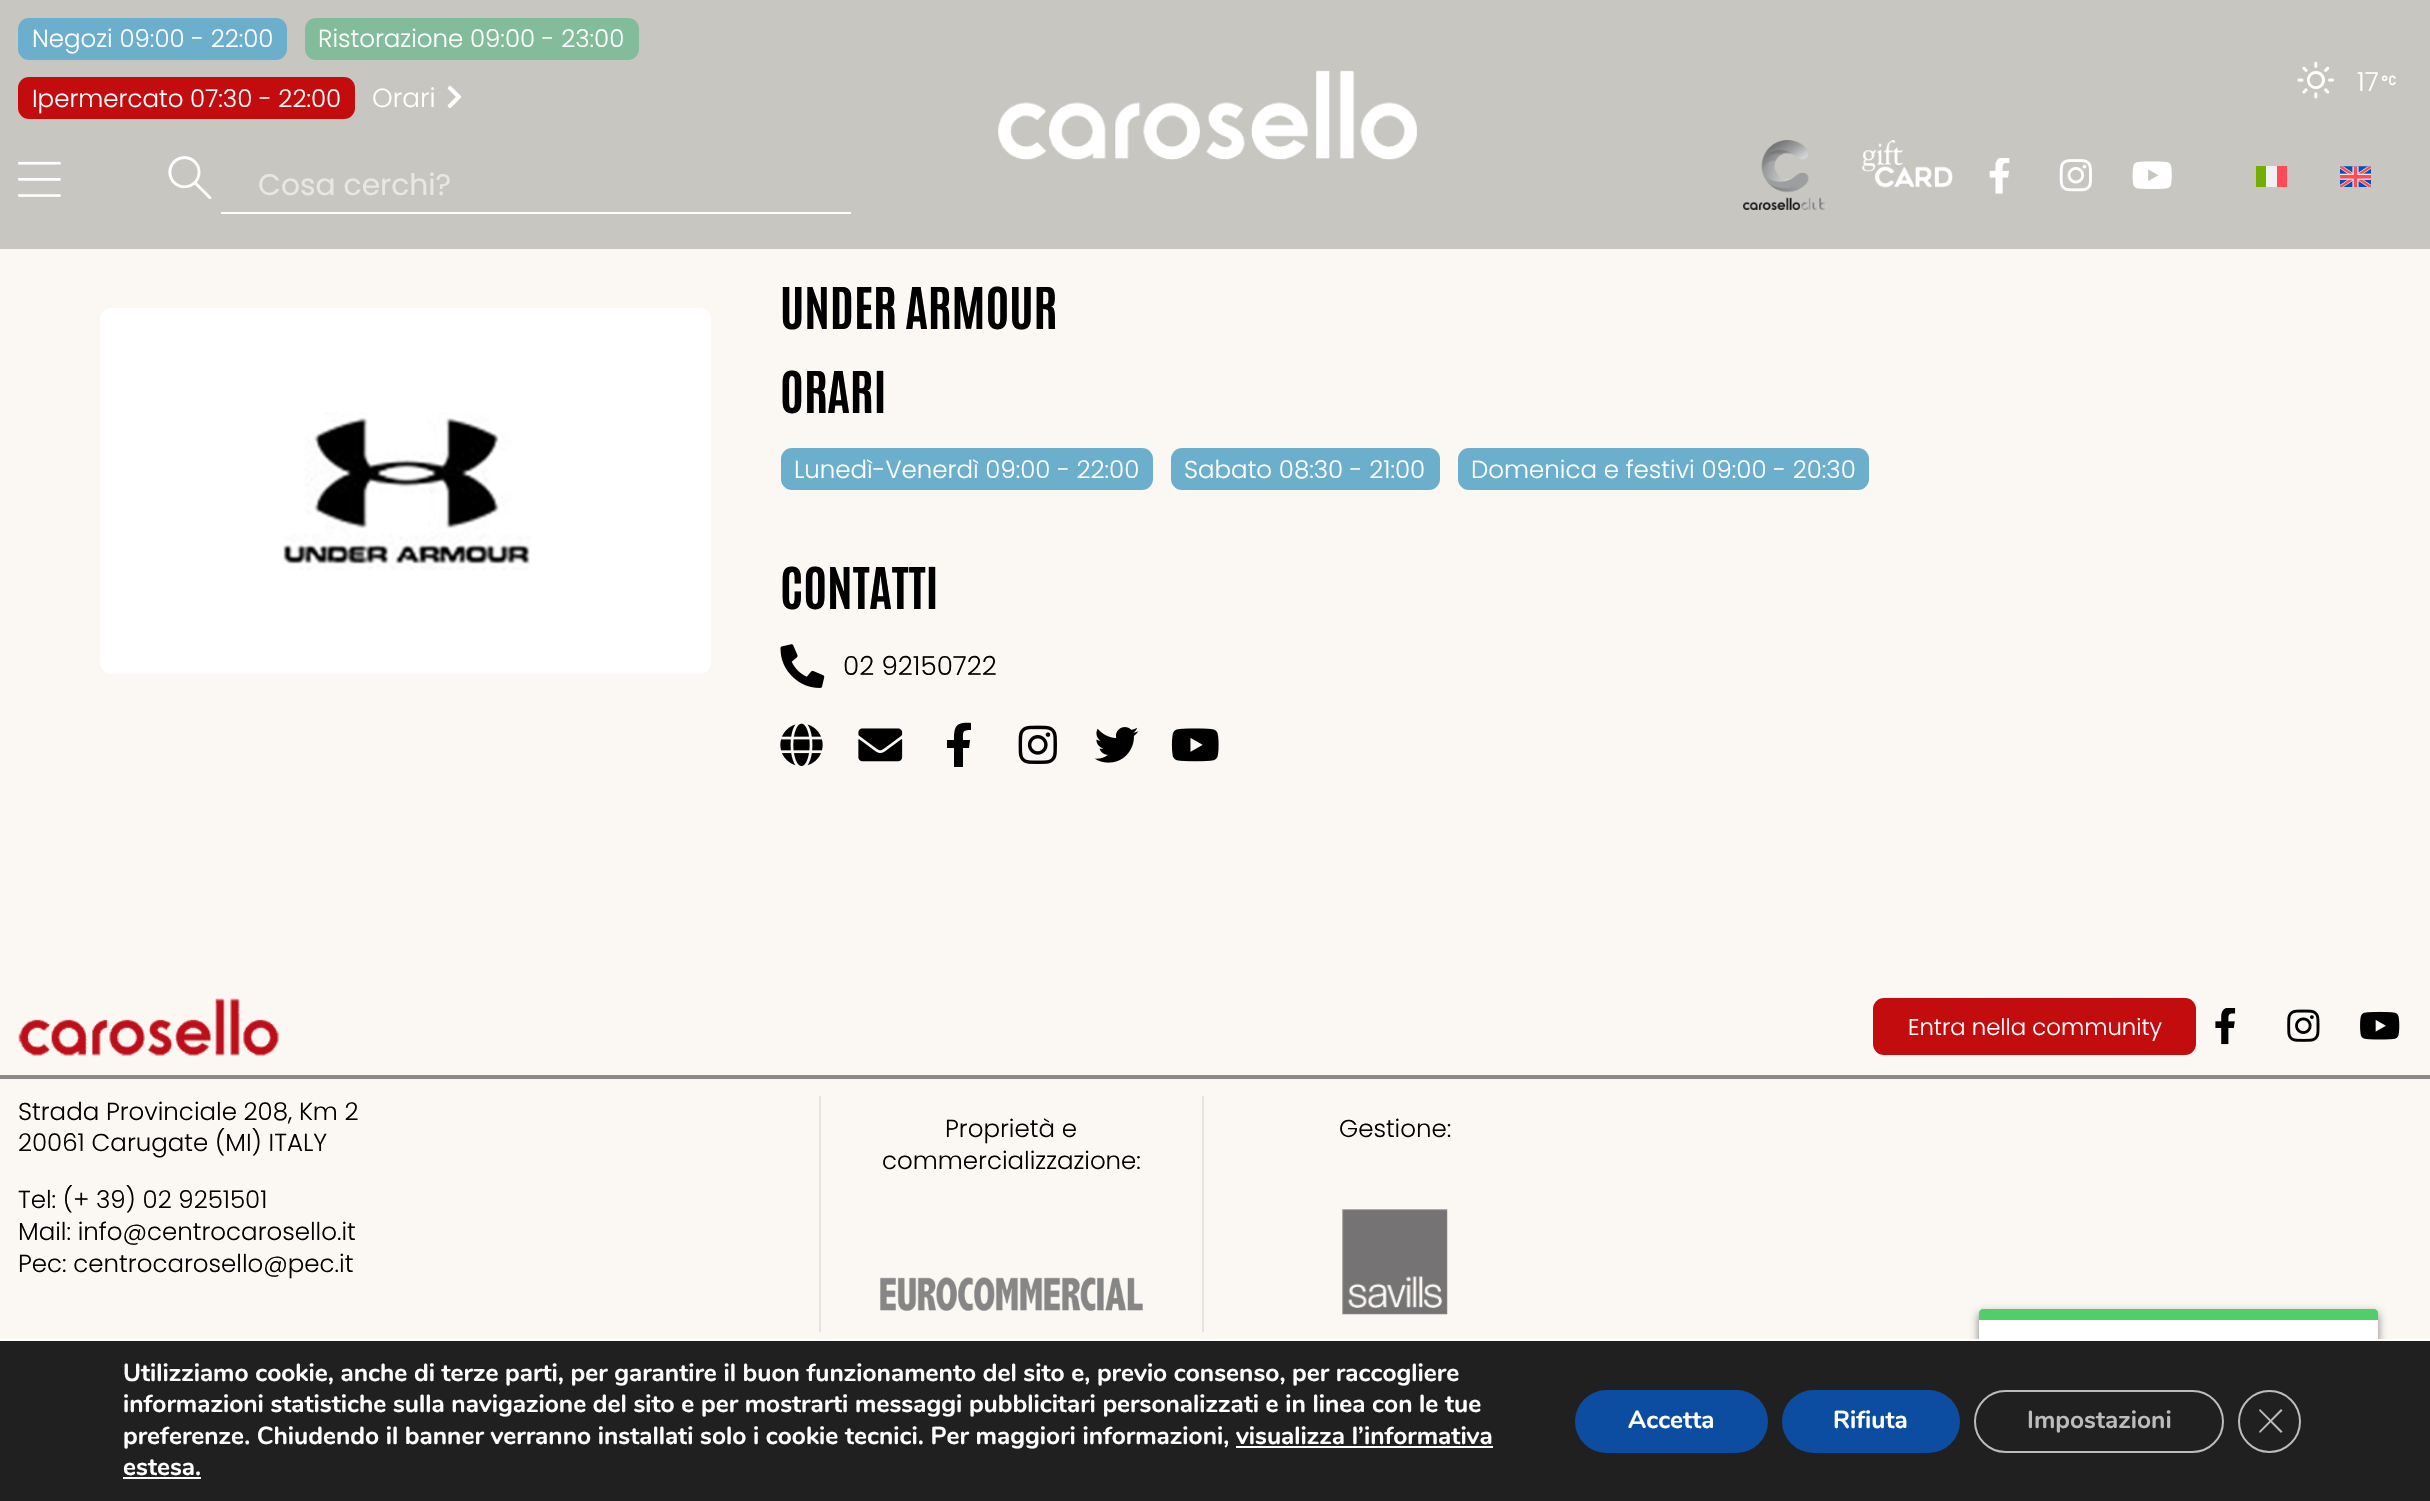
#include "include/core/SkBlurTypes.h"
#include "include/core/SkCanvas.h"
#include "include/core/SkData.h"
#include "include/core/SkFont.h"
#include "include/core/SkFontMgr.h"
#include "include/core/SkImage.h"
#include "include/core/SkMaskFilter.h"
#include "include/core/SkPaint.h"
#include "include/core/SkPathBuilder.h"
#include "include/core/SkTextBlob.h"
#include "include/effects/SkDashPathEffect.h"
#include "include/effects/SkGradientShader.h"
#include "include/utils/SkParsePath.h"

extern sk_sp<SkFontMgr> fontMgr;

void draw(SkCanvas* canvas) {
    SkPaint p;
    p.setAntiAlias(true);
    auto font = [&](const char* family, int weight, float size, bool italic = false) {
        SkFontStyle style(weight, SkFontStyle::kNormal_Width,
            italic ? SkFontStyle::kItalic_Slant : SkFontStyle::kUpright_Slant);
        SkFont result(fontMgr->matchFamilyStyle(family, style), size);
        result.setSubpixel(true);
        return result;
    };
    auto drawPhoto = [&](const char* path, float l, float t, float r, float b) {
        auto image = SkImages::DeferredFromEncodedData(SkData::MakeFromFileName(path));
        canvas->drawImageRect(image, SkRect::MakeLTRB(l, t, r, b), SkSamplingOptions());
    };
    canvas->clear(0xFFFBF7F3);
    p.setColor(0xFFC8C6C1);
    canvas->drawRect(SkRect::MakeLTRB(0, 0, 2430, 249), p);
    p.setColor(0xFF6CAFCD);
    canvas->drawRoundRect(SkRect::MakeLTRB(18, 18, 287, 60), 11, 11, p);
    auto font1 = font("Poppins", 300, 24.5f);
    p.setColor(0xFFFFFFFF);
    canvas->drawString("Negozi 09:00 - 22:00", 32, 47, font1, p);
    p.setColor(0xFF82BC9B);
    canvas->drawRoundRect(SkRect::MakeLTRB(305, 18, 639, 60), 11, 11, p);
    p.setColor(0xFFFFFFFF);
    canvas->drawString("Ristorazione 09:00 - 23:00", 318, 47, font1, p);
    p.setColor(0xFFC20C0D);
    canvas->drawRoundRect(SkRect::MakeLTRB(18, 77, 355, 119), 11, 11, p);
    p.setColor(0xFFFFFFFF);
    canvas->drawString("Ipermercato 07:30 - 22:00", 32, 107, font1, p);
    auto font2 = font("Poppins", 300, 26.25f);
    canvas->drawString("Orari", 372, 107, font2, p);
    drawPhoto("media/1.png", 447, 85, 462, 108);
    drawPhoto("media/2.png", 18, 161, 61, 197);
    drawPhoto("media/3.png", 168, 156, 212, 199);
    canvas->drawRect(SkRect::MakeLTRB(221, 212, 851, 214), p);
    auto font3 = font("Poppins", 400, 29.75f);
    p.setColor(0xFFE8E7E5);
    canvas->drawString("Cosa cerchi?", 258, 195, font3, p);
    drawPhoto("media/4.png", 998, 70, 1417, 160);
    drawPhoto("media/5.png", 2297, 61, 2335, 99);
    p.setColor(0xFFFFFFFF);
    canvas->drawString("17", 2357, 91, font2, p);
    drawPhoto("media/6.png", 2381, 75, 2396, 86);
    drawPhoto("media/7.png", 1743, 140, 1827, 210);
    drawPhoto("media/8.png", 1862, 140, 1953, 188);
    drawPhoto("media/9.png", 1989, 158, 2010, 194);
    drawPhoto("media/10.png", 2059, 159, 2092, 192);
    drawPhoto("media/11.png", 2132, 161, 2172, 189);
    {
        const struct { float l, t, r, b; SkColor color; } items[] = {
            {2266, 166, 2277, 187, 0xFFF0F0F0},
            {2277, 166, 2287, 187, 0xFFFF4B55},
            {2256, 166, 2266, 187, 0xFF73AF00},
        };
        for (auto [l, t, r, b, color] : items) {
            p.setColor(color);
            canvas->drawRect(SkRect::MakeLTRB(l, t, r, b), p);
        }
    }
    drawPhoto("media/12.png", 2340, 166, 2371, 187);
    p.setColor(0xFFFFFFFF);
    canvas->drawRoundRect(SkRect::MakeLTRB(100, 308, 711, 674), 11, 11, p);
    drawPhoto("media/13.png", 283, 412, 531, 570);
    auto font4 = font("Antonio", 700, 49);
    p.setColor(0xFF000000);
    canvas->drawString("UNDER ARMOUR", 780, 329, font4, p);
    canvas->drawString("ORARI", 780, 413, font4, p);
    p.setColor(0xFF6CAFCD);
    canvas->drawRoundRect(SkRect::MakeLTRB(781, 448, 1153, 490), 11, 11, p);
    p.setColor(0xFFFFFFFF);
    canvas->drawString("Lunedì-Venerdì 09:00 - 22:00", 794, 478, font1, p);
    p.setColor(0xFF6CAFCD);
    canvas->drawRoundRect(SkRect::MakeLTRB(1171, 448, 1440, 490), 11, 11, p);
    p.setColor(0xFFFFFFFF);
    canvas->drawString("Sabato 08:30 - 21:00", 1184, 478, font1, p);
    p.setColor(0xFF6CAFCD);
    canvas->drawRoundRect(SkRect::MakeLTRB(1458, 448, 1869, 490), 11, 11, p);
    p.setColor(0xFFFFFFFF);
    canvas->drawString("Domenica e festivi 09:00 - 20:30", 1471, 478, font1, p);
    p.setColor(0xFF000000);
    canvas->drawString("CONTATTI", 780, 609, font4, p);
    drawPhoto("media/14.png", 780, 644, 825, 688);
    canvas->drawString("02 92150722", 843, 675, font2, p);
    drawPhoto("media/15.png", 780, 723, 823, 766);
    drawPhoto("media/16.png", 858, 728, 903, 762);
    canvas->drawPath(SkPathBuilder().moveTo(969, 748).lineTo(963, 748).lineTo(963, 767).lineTo(954, 767).lineTo(954, 748).lineTo(947, 748).lineTo(947, 740).lineTo(954, 740).cubicTo(954, 726, 956, 722, 971, 723).lineTo(971, 730).cubicTo(962, 730, 963, 732, 963, 740).lineTo(970, 740).close().detach(), p);
    drawPhoto("media/17.png", 1018, 725, 1057, 764);
    drawPhoto("media/18.png", 1094, 727, 1139, 763);
    drawPhoto("media/19.png", 1171, 728, 1219, 762);
    p.setColor(0xFF898989);
    canvas->drawRect(SkRect::MakeLTRB(0, 1075, 2430, 1079), p);
    drawPhoto("media/20.png", 18, 998, 279, 1056);
    p.setColor(0xFFC20C0D);
    canvas->drawRoundRect(SkRect::MakeLTRB(1873, 998, 2196, 1055), 11, 11, p);
    auto font5 = font("Poppins", 300, 22.75f);
    p.setColor(0xFFFFFFFF);
    canvas->drawString("Entra nella community", 1908, 1035, font5, p);
    drawPhoto("media/21.png", 2215, 1008, 2236, 1045);
    drawPhoto("media/22.png", 2287, 1009, 2320, 1042);
    drawPhoto("media/23.png", 2360, 1011, 2400, 1040);
    p.setColor(0xFF000000);
    {
        const struct { const char* s; float x, y; } items[] = {
            {"Strada Provinciale 208, Km 2", 18, 1120},
            {"20061 Carugate (MI) ITALY", 18, 1151},
            {"Tel: (+ 39) 02 9251501", 18, 1208},
            {"Mail: info@centrocarosello.it", 18, 1240},
            {"Pec: centrocarosello@pec.it", 18, 1272},
        };
        for (auto [s, x, y] : items) {
            canvas->drawString(s, x, y, font1, p);
        }
    }
    p.setColor(0xFFE4E4E4);
    canvas->drawRect(SkRect::MakeLTRB(1202, 1096, 1204, 1332), p);
    canvas->drawRect(SkRect::MakeLTRB(819, 1096, 821, 1332), p);
    p.setColor(0xFF000000);
    canvas->drawString("Proprietà e", 945, 1137, font1, p);
    canvas->drawString("commercializzazione:", 882, 1169, font1, p);
    drawPhoto("media/24.png", 880, 1277, 1143, 1311);
    canvas->drawString("Gestione:", 1339, 1137, font1, p);
    drawPhoto("media/25.png", 1342, 1209, 1448, 1315);
    p.setColor(0x42000000);
    p.setMaskFilter(SkMaskFilter::MakeBlur(kNormal_SkBlurStyle, 4.5f));
    canvas->drawRoundRect(SkRect::MakeLTRB(1979, 1313, 2378, 1453), 4, 4, p);
    p.setMaskFilter(nullptr);
    p.setMaskFilter(SkMaskFilter::MakeBlur(kNormal_SkBlurStyle, 4.5f));
    canvas->drawRoundRect(SkRect::MakeLTRB(1979, 1313, 2378, 1453), 4, 4, p);
    p.setMaskFilter(nullptr);
    p.setColor(0xFF202020);
    canvas->drawRect(SkRect::MakeLTRB(0, 1341, 2430, 1501), p);
    p.setColor(0xFFFFFFFF);
    canvas->drawRect(SkRect::MakeLTRB(0, 1339, 2430, 1341), p);
    auto font6 = font("Nunito", 700, 24.5f);
    {
        const struct { const char* s; float x, y; } items[] = {
            {"Utilizziamo cookie, anche di terze parti, per garantire il buon funzionamento del sito e, previo consenso, per raccogliere", 123, 1381},
            {"informazioni statistiche sulla navigazione del sito e per mostrarti messaggi pubblicitari personalizzati e in linea con le tue", 123, 1412},
            {"preferenze. Chiudendo il banner verranno installati solo i cookie tecnici. Per maggiori informazioni, visualizza l’informativa", 123, 1444},
            {"estesa.", 123, 1475},
        };
        for (auto [s, x, y] : items) {
            canvas->drawString(s, x, y, font6, p);
        }
    }
    canvas->drawRect(SkRect::MakeLTRB(1236, 1446, 1493, 1448), p);
    canvas->drawRect(SkRect::MakeLTRB(123, 1477, 201, 1479), p);
    p.setColor(0xFF0C4DA2);
    canvas->drawRoundRect(SkRect::MakeLTRB(1575, 1390, 1768, 1453), 31.5f, 31.5f, p);
    p.setColor(0xFFFFFFFF);
    canvas->drawString("Accetta", 1628, 1428, font6, p);
    p.setColor(0xFF0C4DA2);
    canvas->drawRoundRect(SkRect::MakeLTRB(1782, 1390, 1960, 1453), 31.5f, 31.5f, p);
    p.setColor(0xFFFFFFFF);
    canvas->drawString("Rifiuta", 1833, 1428, font6, p);
    p.setStyle(SkPaint::kStroke_Style);
    p.setStrokeWidth(2);
    p.setColor(0xFFBCBCBC);
    canvas->drawRoundRect(SkRect::MakeLTRB(1975, 1391, 2223, 1452), 30.5f, 30.5f, p);
    p.setStyle(SkPaint::kFill_Style);
    canvas->drawString("Impostazioni", 2027, 1428, font6, p);
    p.setStyle(SkPaint::kStroke_Style);
    canvas->drawCircle(2269.5f, 1421.5f, 30.5f, p);
    p.setStyle(SkPaint::kFill_Style);
    canvas->drawPath(SkPathBuilder().moveTo(2281, 1409).lineTo(2282.5f, 1410.5f).lineTo(2260, 1433).lineTo(2259, 1431.5f).close().detach(), p);
    canvas->drawPath(SkPathBuilder().moveTo(2259, 1410.5f).lineTo(2260, 1409).lineTo(2282.5f, 1431.5f).lineTo(2281, 1433).close().detach(), p);
    p.setColor(0xFF4FCE6A);
    canvas->drawPath(SkPathBuilder().moveTo(1983, 1309).lineTo(2374, 1309).cubicTo(2376, 1309, 2378, 1311, 2378, 1313).lineTo(2378, 1320).lineTo(1979, 1320).lineTo(1979, 1313).cubicTo(1979, 1311, 1981, 1309, 1983, 1309).close().detach(), p);
    p.setColor(0xFFFFFFFF);
    canvas->drawRect(SkRect::MakeLTRB(1979, 1320, 2378, 1339), p);
}
